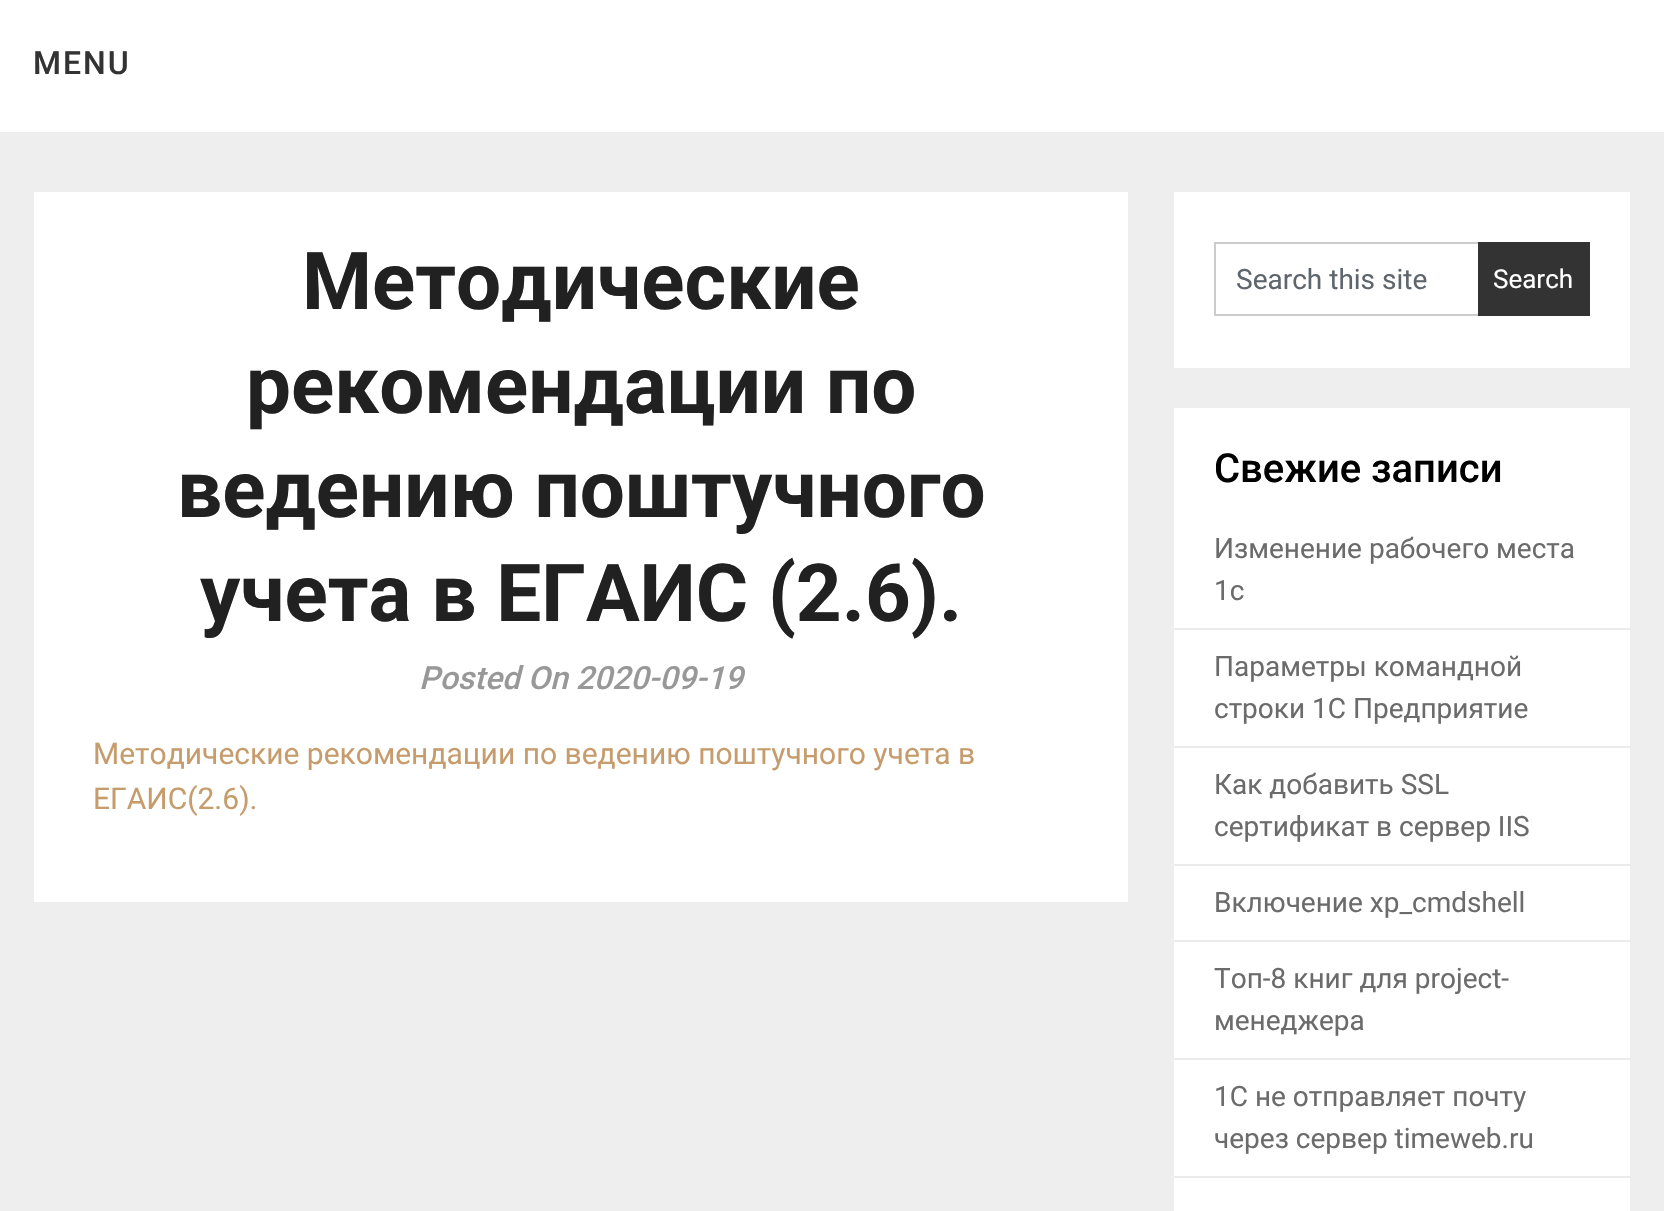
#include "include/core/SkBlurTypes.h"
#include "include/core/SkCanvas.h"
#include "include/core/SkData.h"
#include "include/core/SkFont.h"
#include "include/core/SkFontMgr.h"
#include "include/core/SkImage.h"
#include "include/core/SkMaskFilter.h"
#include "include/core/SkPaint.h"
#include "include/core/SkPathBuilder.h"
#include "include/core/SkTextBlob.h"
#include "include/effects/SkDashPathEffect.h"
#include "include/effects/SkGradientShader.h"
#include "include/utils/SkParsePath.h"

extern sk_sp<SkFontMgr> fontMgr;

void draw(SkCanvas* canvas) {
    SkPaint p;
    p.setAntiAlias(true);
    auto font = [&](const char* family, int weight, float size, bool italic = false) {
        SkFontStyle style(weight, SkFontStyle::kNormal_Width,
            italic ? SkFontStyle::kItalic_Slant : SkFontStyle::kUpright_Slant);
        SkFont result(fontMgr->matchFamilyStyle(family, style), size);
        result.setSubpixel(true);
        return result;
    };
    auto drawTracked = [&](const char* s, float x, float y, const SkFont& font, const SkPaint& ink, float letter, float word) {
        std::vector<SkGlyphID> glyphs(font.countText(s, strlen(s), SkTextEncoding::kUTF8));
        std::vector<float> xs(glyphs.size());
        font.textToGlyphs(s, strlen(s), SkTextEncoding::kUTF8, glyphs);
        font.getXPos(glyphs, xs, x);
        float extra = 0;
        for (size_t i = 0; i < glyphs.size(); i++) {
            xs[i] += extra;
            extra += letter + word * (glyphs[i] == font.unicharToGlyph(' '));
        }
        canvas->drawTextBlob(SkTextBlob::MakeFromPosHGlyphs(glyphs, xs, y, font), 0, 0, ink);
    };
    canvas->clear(0xFFEEEEEE);
    p.setColor(0xFFFFFFFF);
    canvas->drawRect(SkRect::MakeLTRB(0, 0, 1664, 132), p);
    auto font1 = font("Roboto", 500, 32);
    p.setColor(0xFF333333);
    drawTracked("MENU", 33, 74, font1, p, 2, 0);
    p.setColor(0xFFFFFFFF);
    canvas->drawRect(SkRect::MakeLTRB(34, 192, 1128, 902), p);
    auto font2 = font("Roboto", 700, 80);
    p.setColor(0xFF212121);
    {
        const struct { const char* s; float x, y; } items[] = {
            {"Методические", 302, 309},
            {"рекомендации по", 246, 413},
            {"ведению поштучного", 177, 517},
            {"учета в ЕГАИС (2.6).", 200, 621},
        };
        for (auto [s, x, y] : items) {
            canvas->drawString(s, x, y, font2, p);
        }
    }
    auto font3 = font("Roboto", 500, 32, true);
    p.setColor(0xFF989898);
    canvas->drawString("Posted On 2020-09-19", 419, 689, font3, p);
    auto font4 = font("Roboto", 400, 30);
    p.setColor(0xFFC69C6D);
    canvas->drawString("Методические рекомендации по ведению поштучного учета в", 93, 764, font4, p);
    canvas->drawString("ЕГАИС(2.6).", 93, 809, font4, p);
    {
        const struct { float l, t, r, b; SkColor color; } items[] = {
            {1174, 192, 1630, 368, 0xFFFFFFFF},
            {1214, 242, 1478, 244, 0xFFCCCCCC},
            {1214, 314, 1478, 316, 0xFFCCCCCC},
            {1214, 242, 1216, 316, 0xFFCCCCCC},
        };
        for (auto [l, t, r, b, color] : items) {
            p.setColor(color);
            canvas->drawRect(SkRect::MakeLTRB(l, t, r, b), p);
        }
    }
    auto font5 = font("Roboto", 400, 28);
    p.setColor(0xFF5E656D);
    canvas->drawString("Search this site", 1236, 289, font5, p);
    p.setColor(0xFF333333);
    canvas->drawRect(SkRect::MakeLTRB(1478, 242, 1590, 316), p);
    auto font6 = font("Roboto", 400, 26);
    p.setColor(0xFFFFFFFF);
    canvas->drawString("Search", 1493, 288, font6, p);
    canvas->drawRect(SkRect::MakeLTRB(1174, 408, 1630, 1211), p);
    auto font7 = font("Roboto", 500, 40);
    p.setColor(0xFF000000);
    canvas->drawString("Свежие записи", 1214, 482, font7, p);
    p.setColor(0xFFEBEBEB);
    canvas->drawRect(SkRect::MakeLTRB(1174, 628, 1630, 630), p);
    p.setColor(0xFF6B6B6B);
    canvas->drawString("Изменение рабочего места", 1214, 558, font5, p);
    canvas->drawString("1с", 1214, 600, font5, p);
    p.setColor(0xFFEBEBEB);
    canvas->drawRect(SkRect::MakeLTRB(1174, 746, 1630, 748), p);
    p.setColor(0xFF6B6B6B);
    canvas->drawString("Параметры командной", 1214, 676, font5, p);
    canvas->drawString("строки 1С Предприятие", 1214, 718, font5, p);
    p.setColor(0xFFEBEBEB);
    canvas->drawRect(SkRect::MakeLTRB(1174, 864, 1630, 866), p);
    p.setColor(0xFF6B6B6B);
    canvas->drawString("Как добавить SSL", 1214, 794, font5, p);
    canvas->drawString("сертификат в сервер IIS", 1214, 836, font5, p);
    p.setColor(0xFFEBEBEB);
    canvas->drawRect(SkRect::MakeLTRB(1174, 940, 1630, 942), p);
    p.setColor(0xFF6B6B6B);
    canvas->drawString("Включение xp_cmdshell", 1214, 912, font5, p);
    p.setColor(0xFFEBEBEB);
    canvas->drawRect(SkRect::MakeLTRB(1174, 1058, 1630, 1060), p);
    p.setColor(0xFF6B6B6B);
    canvas->drawString("Топ-8 книг для project-", 1214, 988, font5, p);
    canvas->drawString("менеджера", 1214, 1030, font5, p);
    p.setColor(0xFFEBEBEB);
    canvas->drawRect(SkRect::MakeLTRB(1174, 1176, 1630, 1178), p);
    p.setColor(0xFF6B6B6B);
    canvas->drawString("1С не отправляет почту", 1214, 1106, font5, p);
    canvas->drawString("через сервер timeweb.ru", 1214, 1148, font5, p);
}
